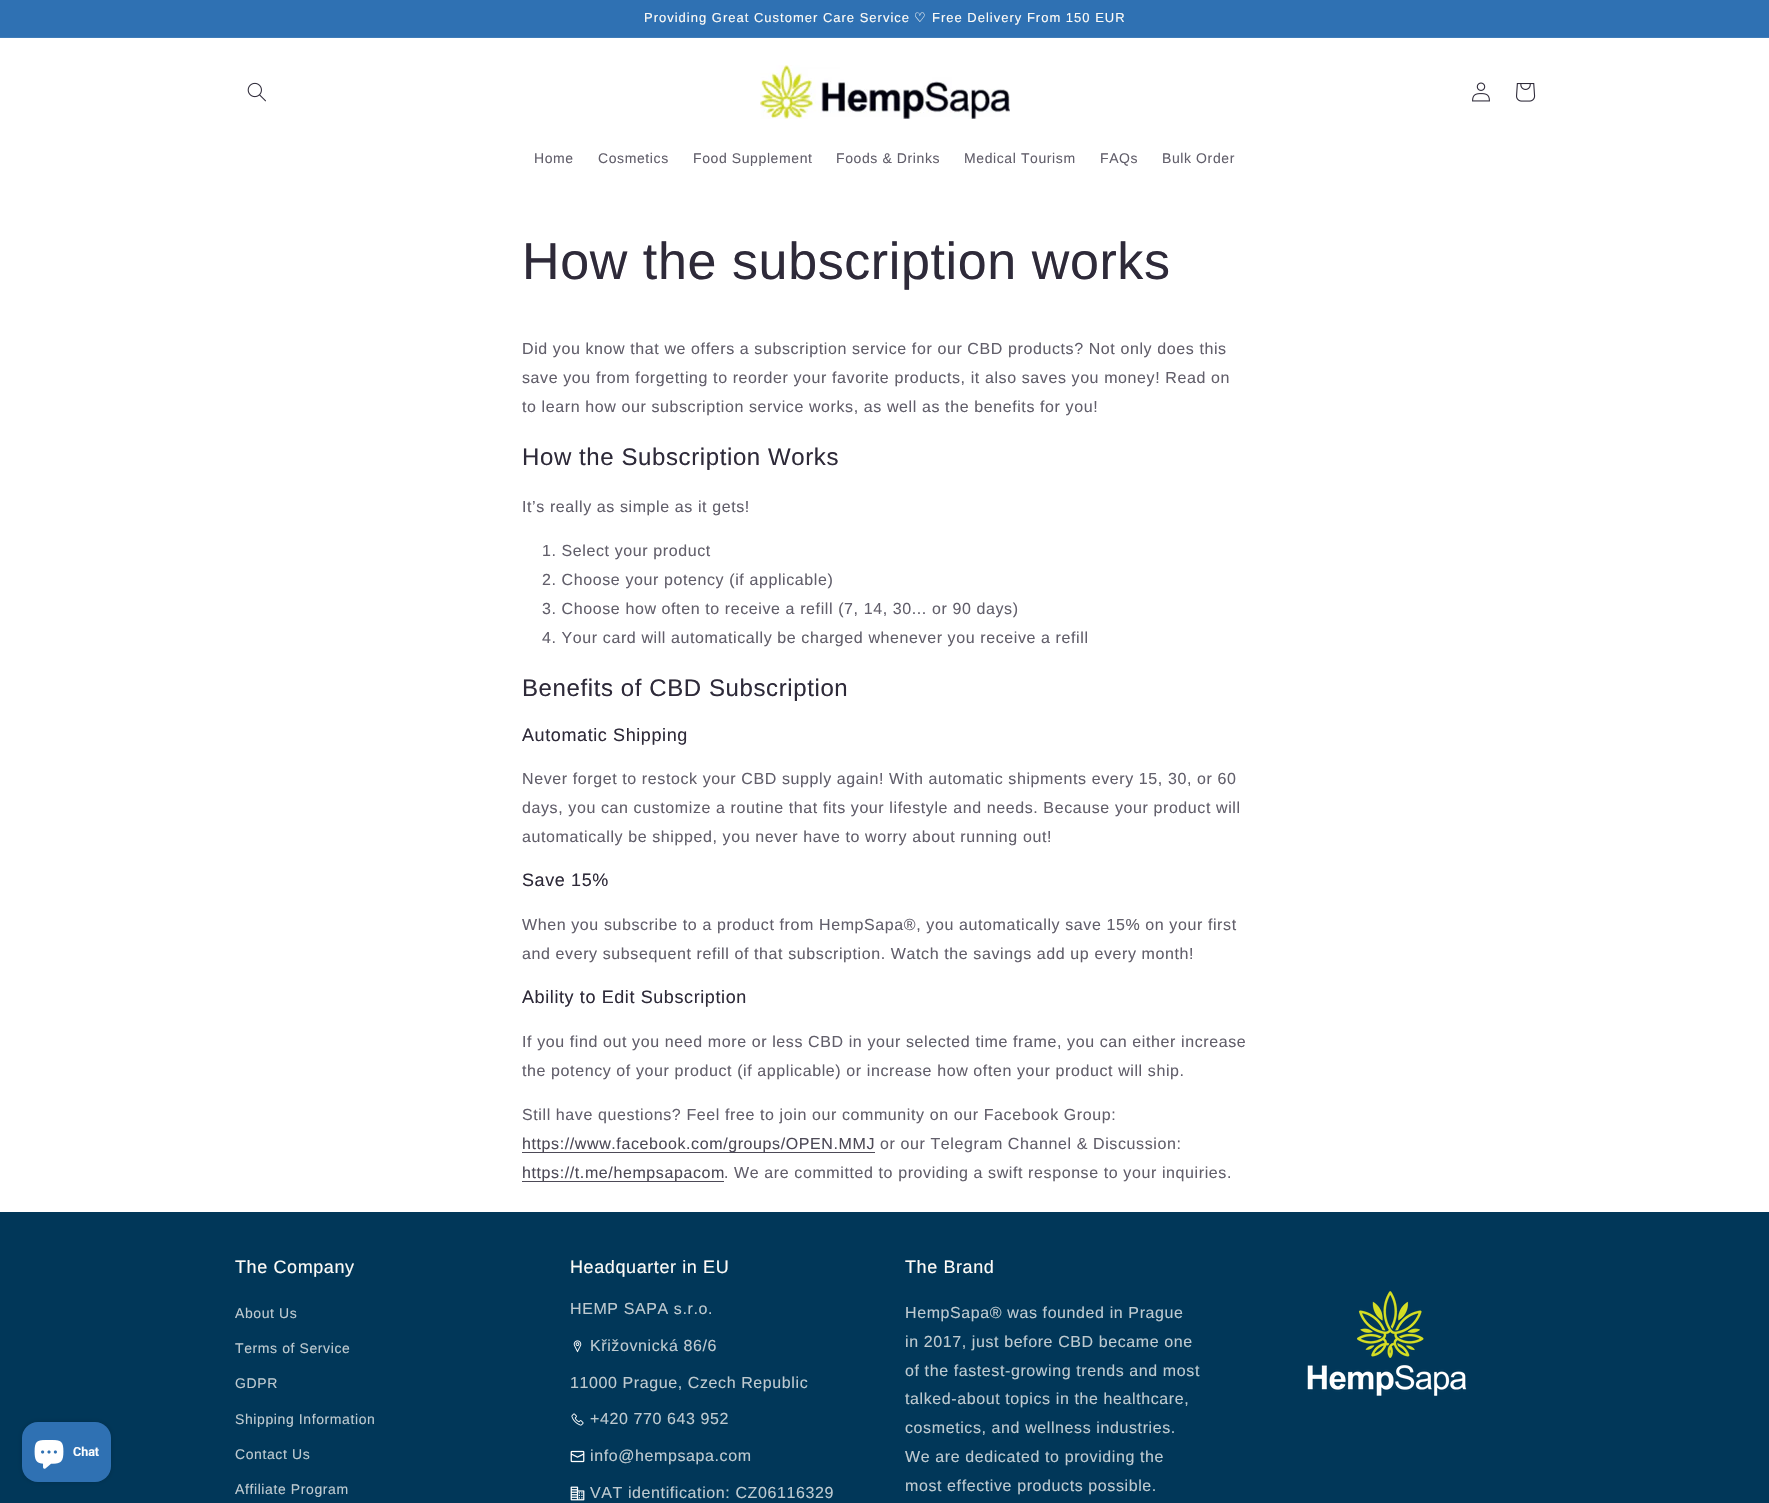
#include "include/core/SkBlurTypes.h"
#include "include/core/SkCanvas.h"
#include "include/core/SkData.h"
#include "include/core/SkFont.h"
#include "include/core/SkFontMgr.h"
#include "include/core/SkImage.h"
#include "include/core/SkMaskFilter.h"
#include "include/core/SkPaint.h"
#include "include/core/SkPathBuilder.h"
#include "include/core/SkTextBlob.h"
#include "include/effects/SkDashPathEffect.h"
#include "include/effects/SkGradientShader.h"
#include "include/utils/SkParsePath.h"

extern sk_sp<SkFontMgr> fontMgr;

void draw(SkCanvas* canvas) {
    SkPaint p;
    p.setAntiAlias(true);
    auto font = [&](const char* family, int weight, float size, bool italic = false) {
        SkFontStyle style(weight, SkFontStyle::kNormal_Width,
            italic ? SkFontStyle::kItalic_Slant : SkFontStyle::kUpright_Slant);
        SkFont result(fontMgr->matchFamilyStyle(family, style), size);
        result.setSubpixel(true);
        return result;
    };
    auto drawTracked = [&](const char* s, float x, float y, const SkFont& font, const SkPaint& ink, float letter, float word) {
        std::vector<SkGlyphID> glyphs(font.countText(s, strlen(s), SkTextEncoding::kUTF8));
        std::vector<float> xs(glyphs.size());
        font.textToGlyphs(s, strlen(s), SkTextEncoding::kUTF8, glyphs);
        font.getXPos(glyphs, xs, x);
        float extra = 0;
        for (size_t i = 0; i < glyphs.size(); i++) {
            xs[i] += extra;
            extra += letter + word * (glyphs[i] == font.unicharToGlyph(' '));
        }
        canvas->drawTextBlob(SkTextBlob::MakeFromPosHGlyphs(glyphs, xs, y, font), 0, 0, ink);
    };
    auto drawPhoto = [&](const char* path, float l, float t, float r, float b) {
        auto image = SkImages::DeferredFromEncodedData(SkData::MakeFromFileName(path));
        canvas->drawImageRect(image, SkRect::MakeLTRB(l, t, r, b), SkSamplingOptions());
    };
    canvas->clear(0xFFFFFFFF);
    p.setColor(0xFF2F71B3);
    canvas->drawRect(SkRect::MakeLTRB(0, 0, 1769, 37), p);
    p.setColor(0xFF3F7CB8);
    canvas->drawRect(SkRect::MakeLTRB(0, 37, 1769, 38), p);
    auto font1 = font("Liberation Sans", 400, 13);
    p.setColor(0xFFFDFBF7);
    drawTracked("Providing Great Customer Care Service", 644, 22, font1, p, 1, 0);
    auto font2 = font("DejaVu Sans", 400, 13);
    drawTracked("♡", 914, 22, font2, p, 1, 0);
    drawTracked("Free Delivery From 150 EUR", 932, 22, font1, p, 1, 0);
    drawPhoto("media/1.png", 247, 82, 266, 102);
    drawPhoto("media/2.png", 760, 65, 1010, 119);
    drawPhoto("media/3.png", 1472, 82, 1490, 102);
    drawPhoto("media/4.png", 1516, 83, 1536, 102);
    auto font3 = font("Liberation Sans", 400, 14);
    p.setColor(0xFF625F6B);
    {
        const struct { const char* s; float x, y; } items[] = {
            {"Home", 534, 163},
            {"Cosmetics", 598, 163},
            {"Food Supplement", 693, 163},
            {"Foods & Drinks", 836, 163},
            {"Medical Tourism", 964, 163},
            {"FAQs", 1100, 163},
            {"Bulk Order", 1162, 163},
        };
        for (auto [s, x, y] : items) {
            drawTracked(s, x, y, font3, p, 0.6f, 0);
        }
    }
    auto font4 = font("Liberation Sans", 400, 52);
    p.setColor(0xFF2E2A39);
    drawTracked("How the subscription works", 522, 279, font4, p, 0.6f, 0);
    auto font5 = font("Liberation Sans", 400, 16);
    p.setColor(0xFF625F6B);
    {
        const struct { const char* s; float x, y; } items[] = {
            {"Did you know that we offers a subscription service for our CBD products? Not only does this", 522, 354},
            {"save you from forgetting to reorder your favorite products, it also saves you money! Read on", 522, 383},
            {"to learn how our subscription service works, as well as the benefits for you!", 522, 412},
        };
        for (auto [s, x, y] : items) {
            drawTracked(s, x, y, font5, p, 0.6f, 0);
        }
    }
    auto font6 = font("Liberation Sans", 400, 24);
    p.setColor(0xFF2E2A39);
    drawTracked("How the Subscription Works", 522, 465, font6, p, 0.6f, 0);
    p.setColor(0xFF625F6B);
    {
        const struct { const char* s; float x, y; } items[] = {
            {"It’s really as simple as it gets!", 522, 512},
            {"1. Select your product", 542, 556},
            {"2. Choose your potency (if applicable)", 542, 585},
            {"3. Choose how often to receive a refill (7, 14, 30... or 90 days)", 542, 614},
            {"4. Your card will automatically be charged whenever you receive a refill", 542, 643},
        };
        for (auto [s, x, y] : items) {
            drawTracked(s, x, y, font5, p, 0.6f, 0);
        }
    }
    p.setColor(0xFF2E2A39);
    drawTracked("Benefits of CBD Subscription", 522, 696, font6, p, 0.6f, 0);
    auto font7 = font("Liberation Sans", 400, 18);
    drawTracked("Automatic Shipping", 522, 741, font7, p, 0.6f, 0);
    p.setColor(0xFF625F6B);
    {
        const struct { const char* s; float x, y; } items[] = {
            {"Never forget to restock your CBD supply again! With automatic shipments every 15, 30, or 60", 522, 784},
            {"days, you can customize a routine that fits your lifestyle and needs. Because your product will", 522, 813},
            {"automatically be shipped, you never have to worry about running out!", 522, 842},
        };
        for (auto [s, x, y] : items) {
            drawTracked(s, x, y, font5, p, 0.6f, 0);
        }
    }
    p.setColor(0xFF2E2A39);
    drawTracked("Save 15%", 522, 886, font7, p, 0.6f, 0);
    p.setColor(0xFF625F6B);
    drawTracked("When you subscribe to a product from HempSapa®, you automatically save 15% on your first", 522, 930, font5, p, 0.6f, 0);
    drawTracked("and every subsequent refill of that subscription. Watch the savings add up every month!", 522, 959, font5, p, 0.6f, 0);
    p.setColor(0xFF2E2A39);
    drawTracked("Ability to Edit Subscription", 522, 1003, font7, p, 0.6f, 0);
    p.setColor(0xFF625F6B);
    {
        const struct { const char* s; float x, y; } items[] = {
            {"If you find out you need more or less CBD in your selected time frame, you can either increase", 522, 1047},
            {"the potency of your product (if applicable) or increase how often your product will ship.", 522, 1076},
            {"Still have questions? Feel free to join our community on our Facebook Group:", 522, 1120},
        };
        for (auto [s, x, y] : items) {
            drawTracked(s, x, y, font5, p, 0.6f, 0);
        }
    }
    p.setColor(0xFF4D4A57);
    canvas->drawRect(SkRect::MakeLTRB(522, 1152, 875, 1153), p);
    drawTracked("https://www.facebook.com/groups/OPEN.MMJ", 522, 1149, font5, p, 0.6f, 0);
    p.setColor(0xFF625F6B);
    drawTracked("or our Telegram Channel & Discussion:", 880, 1149, font5, p, 0.6f, 0);
    p.setColor(0xFF4D4A57);
    canvas->drawRect(SkRect::MakeLTRB(522, 1181, 724, 1182), p);
    drawTracked("https://t.me/hempsapacom", 522, 1178, font5, p, 0.6f, 0);
    p.setColor(0xFF625F6B);
    drawTracked(". We are committed to providing a swift response to your inquiries.", 724, 1178, font5, p, 0.6f, 0);
    {
        const SkColor colors[] = {0xFF013759, 0xFF5E3653};
        const float stops[] = {1, 1};
        const SkPoint ends[] = {{1620, 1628}, {149, -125}};
        p.setShader(SkGradientShader::MakeLinear(ends, colors, stops, 2, SkTileMode::kClamp));
        p.setAlpha(255);
    }
    canvas->drawRect(SkRect::MakeLTRB(0, 1212, 1769, 1503), p);
    p.setShader(nullptr);
    p.setColor(0x26000000);
    p.setMaskFilter(SkMaskFilter::MakeBlur(kNormal_SkBlurStyle, 2.5f));
    canvas->drawRoundRect(SkRect::MakeLTRB(22, 1422, 111, 1482), 16, 16, p);
    p.setMaskFilter(nullptr);
    p.setColor(0xFF2F71B3);
    canvas->drawRoundRect(SkRect::MakeLTRB(22, 1422, 111, 1482), 16, 16, p);
    drawPhoto("media/5.png", 34, 1440, 64, 1469);
    auto font8 = font("Roboto", 600, 12.5f);
    p.setColor(0xFFFFFFFF);
    canvas->drawString("Chat", 73, 1456, font8, p);
    p.setColor(0xFFFDFBF7);
    drawTracked("The Company", 235, 1273, font7, p, 0.6f, 0);
    p.setColor(0xFFBECAD0);
    {
        const struct { const char* s; float x, y; } items[] = {
            {"About Us", 235, 1318},
            {"Terms of Service", 235, 1353},
            {"GDPR", 235, 1388},
            {"Shipping Information", 235, 1424},
            {"Contact Us", 235, 1459},
            {"Affiliate Program", 235, 1494},
        };
        for (auto [s, x, y] : items) {
            drawTracked(s, x, y, font3, p, 0.6f, 0);
        }
    }
    p.setColor(0xFFFDFBF7);
    drawTracked("Headquarter in EU", 570, 1273, font7, p, 0.6f, 0);
    p.setColor(0xFFBECAD0);
    drawTracked("HEMP SAPA s.r.o.", 570, 1314, font5, p, 0.6f, 0);
    drawPhoto("media/6.png", 573, 1340, 582, 1353);
    drawTracked("Křižovnická 86/6", 590, 1351, font5, p, 0.6f, 0);
    drawTracked("11000 Prague, Czech Republic", 570, 1388, font5, p, 0.6f, 0);
    drawPhoto("media/7.png", 571, 1413, 584, 1426);
    drawTracked("+420 770 643 952", 590, 1424, font5, p, 0.6f, 0);
    drawPhoto("media/8.png", 570, 1450, 585, 1463);
    drawTracked("info@hempsapa.com", 590, 1461, font5, p, 0.6f, 0);
    drawPhoto("media/9.png", 570, 1486, 585, 1501);
    drawTracked("VAT identification: CZ06116329", 590, 1498, font5, p, 0.6f, 0);
    p.setColor(0xFFFDFBF7);
    drawTracked("The Brand", 905, 1273, font7, p, 0.6f, 0);
    p.setColor(0xFFBECAD0);
    {
        const struct { const char* s; float x, y; } items[] = {
            {"HempSapa® was founded in Prague", 905, 1318},
            {"in 2017, just before CBD became one", 905, 1347},
            {"of the fastest-growing trends and most", 905, 1376},
            {"talked-about topics in the healthcare,", 905, 1404},
            {"cosmetics, and wellness industries.", 905, 1433},
            {"We are dedicated to providing the", 905, 1462},
            {"most effective products possible.", 905, 1491},
        };
        for (auto [s, x, y] : items) {
            drawTracked(s, x, y, font5, p, 0.6f, 0);
        }
    }
    drawPhoto("media/10.png", 1307, 1291, 1467, 1396);
}
